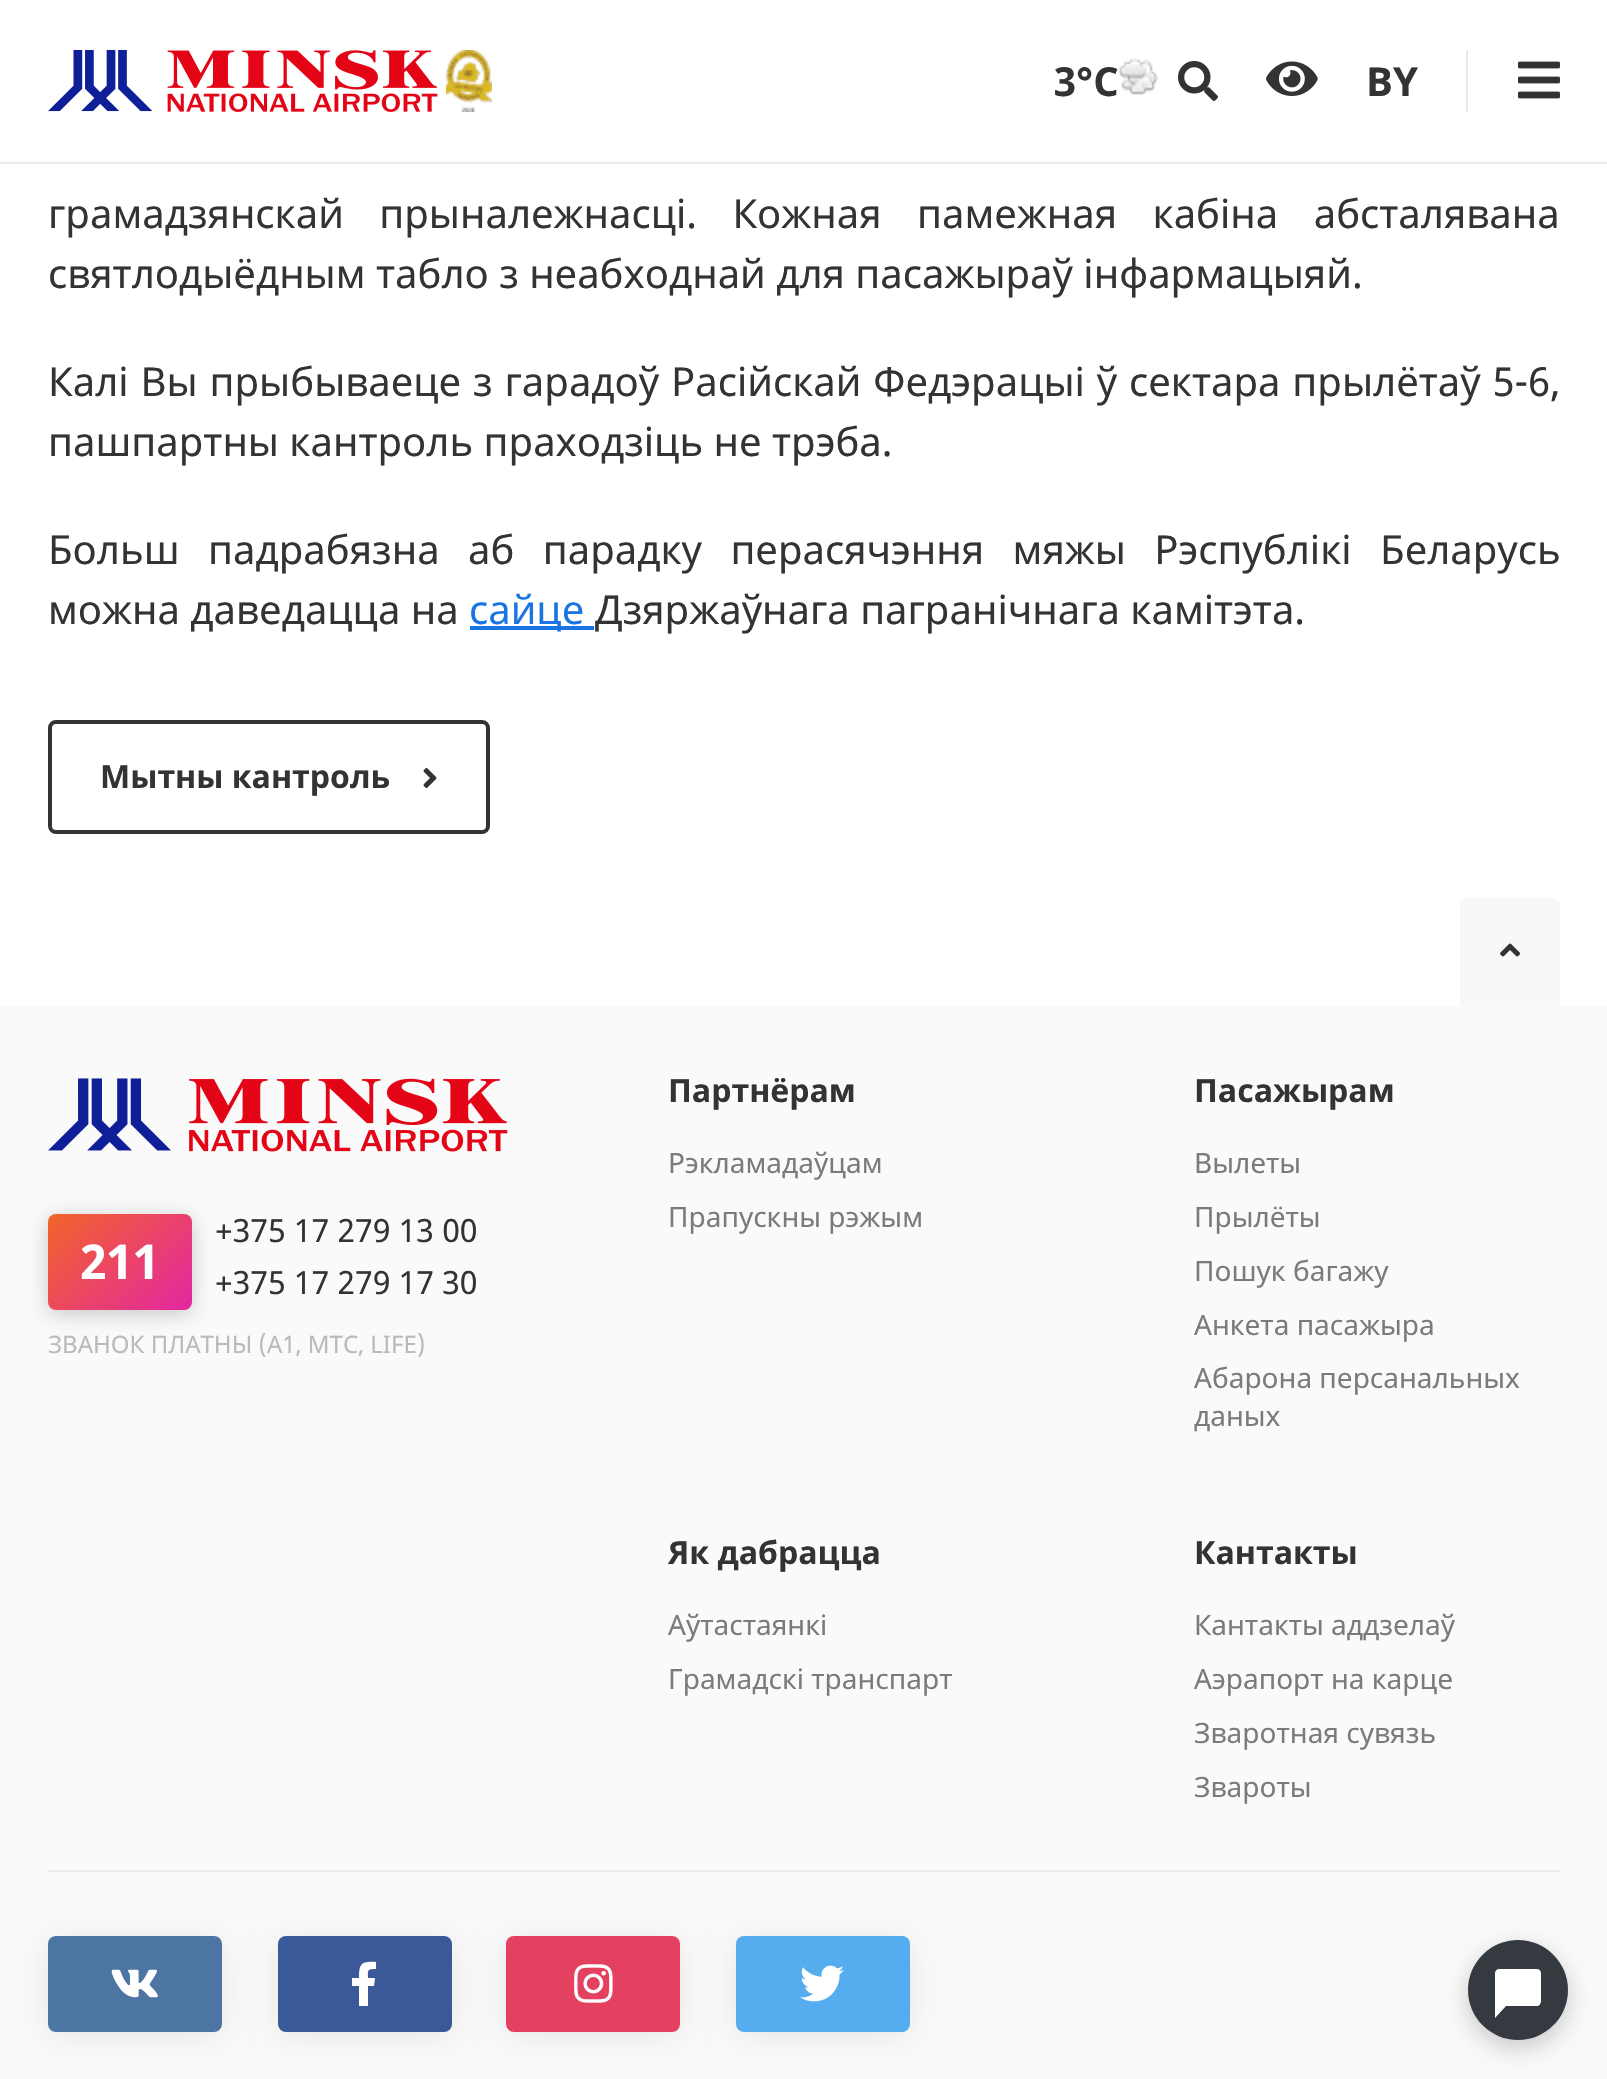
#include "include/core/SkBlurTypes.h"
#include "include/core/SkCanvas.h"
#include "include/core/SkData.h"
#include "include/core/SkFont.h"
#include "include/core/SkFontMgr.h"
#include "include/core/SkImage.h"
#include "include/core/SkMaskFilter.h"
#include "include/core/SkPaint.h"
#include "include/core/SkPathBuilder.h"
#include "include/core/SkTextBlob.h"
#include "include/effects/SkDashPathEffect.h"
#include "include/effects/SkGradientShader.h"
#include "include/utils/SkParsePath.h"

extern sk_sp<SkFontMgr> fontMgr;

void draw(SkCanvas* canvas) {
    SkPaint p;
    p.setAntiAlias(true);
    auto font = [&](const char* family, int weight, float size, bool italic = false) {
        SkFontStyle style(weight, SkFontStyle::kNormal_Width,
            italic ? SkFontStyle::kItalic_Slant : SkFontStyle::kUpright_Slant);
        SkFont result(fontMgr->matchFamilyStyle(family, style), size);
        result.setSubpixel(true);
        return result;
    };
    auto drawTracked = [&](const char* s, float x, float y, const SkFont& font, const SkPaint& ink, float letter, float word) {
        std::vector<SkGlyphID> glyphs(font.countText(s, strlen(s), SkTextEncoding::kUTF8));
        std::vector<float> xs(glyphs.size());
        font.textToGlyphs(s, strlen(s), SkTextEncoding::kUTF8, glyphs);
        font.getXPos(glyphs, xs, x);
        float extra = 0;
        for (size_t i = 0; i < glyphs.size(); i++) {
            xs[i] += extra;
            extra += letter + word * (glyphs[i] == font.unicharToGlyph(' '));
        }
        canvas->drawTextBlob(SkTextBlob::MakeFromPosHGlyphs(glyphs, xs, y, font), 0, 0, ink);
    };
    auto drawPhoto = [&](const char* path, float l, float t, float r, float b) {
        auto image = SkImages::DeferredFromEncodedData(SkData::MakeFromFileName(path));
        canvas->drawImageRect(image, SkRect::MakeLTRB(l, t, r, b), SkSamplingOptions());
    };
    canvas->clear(0xFFFFFFFF);
    p.setColor(0xFFEBEBEB);
    canvas->drawRect(SkRect::MakeLTRB(0, 162, 1607, 164), p);
    drawPhoto("media/1.png", 48, 50, 438, 112);
    drawPhoto("media/2.png", 446, 50, 492, 112);
    canvas->drawRect(SkRect::MakeLTRB(1466, 50, 1468, 112), p);
    auto font1 = font("Noto Sans", 700, 40);
    p.setColor(0xFF333333);
    canvas->drawString("3°C", 1054, 96, font1, p);
    drawPhoto("media/3.png", 1118, 58, 1158, 95);
    drawPhoto("media/4.png", 1178, 61, 1218, 101);
    drawPhoto("media/5.png", 1266, 61, 1318, 96);
    canvas->drawString("BY", 1366, 96, font1, p);
    drawPhoto("media/6.png", 1518, 61, 1560, 99);
    auto font2 = font("Noto Sans", 400, 40);
    drawTracked("грамадзянскай прыналежнасці. Кожная памежная кабіна абсталявана", 48, 228, font2, p, 0, 25);
    canvas->drawString("святлодыёдным табло з неабходнай для пасажыраў інфармацыяй.", 48, 288, font2, p);
    drawTracked("Калі Вы прыбываеце з гарадоў Расійскай Федэрацыі ў сектара прылётаў 5-6,", 48, 396, font2, p, 0, 1.5f);
    canvas->drawString("пашпартны кантроль праходзіць не трэба.", 48, 456, font2, p);
    drawTracked("Больш падрабязна аб парадку перасячэння мяжы Рэспублікі Беларусь", 48, 564, font2, p, 0, 18);
    canvas->drawString("можна даведацца на", 48, 624, font2, p);
    p.setColor(0xFF1A75E3);
    canvas->drawRect(SkRect::MakeLTRB(470, 626, 594, 630), p);
    canvas->drawString("сайце", 469, 624, font2, p);
    p.setColor(0xFF333333);
    canvas->drawString("Дзяржаўнага пагранічнага камітэта.", 595, 624, font2, p);
    p.setStyle(SkPaint::kStroke_Style);
    p.setStrokeWidth(4);
    canvas->drawRoundRect(SkRect::MakeLTRB(50, 722, 488, 832), 6, 6, p);
    auto font3 = font("Noto Sans", 700, 32);
    p.setStyle(SkPaint::kFill_Style);
    canvas->drawString("Мытны кантроль", 100, 788, font3, p);
    drawPhoto("media/7.png", 423, 768, 437, 788);
    p.setColor(0xFFF8F8F8);
    canvas->drawPath(SkPathBuilder().moveTo(1468, 898).lineTo(1552, 898).cubicTo(1556.5f, 898, 1560, 901.5f, 1560, 906).lineTo(1560, 1006).lineTo(1460, 1006).lineTo(1460, 906).cubicTo(1460, 901.5f, 1463.5f, 898, 1468, 898).close().detach(), p);
    drawPhoto("media/8.png", 1500, 943, 1520, 957);
    p.setColor(0xFFFAFAFA);
    canvas->drawRect(SkRect::MakeLTRB(0, 1006, 1607, 2079), p);
    drawPhoto("media/9.png", 48, 1078, 508, 1152);
    p.setColor(0x33000000);
    p.setMaskFilter(SkMaskFilter::MakeBlur(kNormal_SkBlurStyle, 10));
    canvas->drawRoundRect(SkRect::MakeLTRB(48, 1218, 192, 1314), 8, 8, p);
    p.setMaskFilter(nullptr);
    {
        const SkColor colors[] = {0xFFF16529, 0xFFE426A2};
        const float stops[] = {0, 1};
        const SkPoint ends[] = {{60, 1202}, {180, 1322}};
        p.setShader(SkGradientShader::MakeLinear(ends, colors, stops, 2, SkTileMode::kClamp));
        p.setAlpha(255);
    }
    canvas->drawRoundRect(SkRect::MakeLTRB(48, 1214, 192, 1310), 8, 8, p);
    auto font4 = font("Noto Sans", 700, 48);
    p.setShader(nullptr);
    p.setColor(0xFFFFFFFF);
    canvas->drawString("211", 80, 1279, font4, p);
    auto font5 = font("Noto Sans", 400, 32);
    p.setColor(0xFF333333);
    canvas->drawString("+375 17 279 13 00", 215, 1242, font5, p);
    canvas->drawString("+375 17 279 17 30", 215, 1294, font5, p);
    auto font6 = font("Noto Sans", 400, 24);
    p.setColor(0xFFBABABA);
    canvas->drawString("ЗВАНОК ПЛАТНЫ (A1, МТС, LIFE)", 48, 1353, font6, p);
    p.setColor(0xFF333333);
    canvas->drawString("Партнёрам", 668, 1102, font3, p);
    auto font7 = font("Noto Sans", 400, 28);
    p.setColor(0xFF7B7B7B);
    canvas->drawString("Рэкламадаўцам", 668, 1173, font7, p);
    canvas->drawString("Прапускны рэжым", 668, 1227, font7, p);
    p.setColor(0xFF333333);
    canvas->drawString("Пасажырам", 1194, 1102, font3, p);
    p.setColor(0xFF7B7B7B);
    {
        const struct { const char* s; float x, y; } items[] = {
            {"Вылеты", 1194, 1173},
            {"Прылёты", 1194, 1227},
            {"Пошук багажу", 1194, 1281},
            {"Анкета пасажыра", 1194, 1335},
            {"Абарона персанальных", 1194, 1388},
            {"даных", 1194, 1426},
        };
        for (auto [s, x, y] : items) {
            canvas->drawString(s, x, y, font7, p);
        }
    }
    p.setColor(0xFF333333);
    canvas->drawString("Як дабрацца", 668, 1564, font3, p);
    p.setColor(0xFF7B7B7B);
    canvas->drawString("Aўтастаянкi", 668, 1635, font7, p);
    canvas->drawString("Грамадскі транспарт", 668, 1689, font7, p);
    p.setColor(0xFF333333);
    canvas->drawString("Кантакты", 1194, 1564, font3, p);
    p.setColor(0xFF7B7B7B);
    {
        const struct { const char* s; float x, y; } items[] = {
            {"Кантакты аддзелаў", 1194, 1635},
            {"Аэрапорт на карце", 1194, 1689},
            {"Зваротная сувязь", 1194, 1743},
            {"Звароты", 1194, 1797},
        };
        for (auto [s, x, y] : items) {
            canvas->drawString(s, x, y, font7, p);
        }
    }
    p.setColor(0xFFEAEAEA);
    canvas->drawRect(SkRect::MakeLTRB(48, 1870, 1560, 1872), p);
    p.setColor(0x14000000);
    p.setMaskFilter(SkMaskFilter::MakeBlur(kNormal_SkBlurStyle, 16));
    canvas->drawRoundRect(SkRect::MakeLTRB(48, 1940, 222, 2036), 8, 8, p);
    p.setMaskFilter(nullptr);
    p.setColor(0xFF4C75A3);
    canvas->drawRoundRect(SkRect::MakeLTRB(48, 1936, 222, 2032), 8, 8, p);
    drawPhoto("media/10.png", 111, 1969, 158, 1998);
    p.setColor(0x14000000);
    p.setMaskFilter(SkMaskFilter::MakeBlur(kNormal_SkBlurStyle, 16));
    canvas->drawRoundRect(SkRect::MakeLTRB(278, 1940, 452, 2036), 8, 8, p);
    p.setMaskFilter(nullptr);
    p.setColor(0xFF3B5999);
    canvas->drawRoundRect(SkRect::MakeLTRB(278, 1936, 452, 2032), 8, 8, p);
    p.setColor(0xFFFFFFFF);
    canvas->drawPath(SkPathBuilder().moveTo(374, 1986).lineTo(368, 1986).lineTo(368, 2006).lineTo(359, 2006).lineTo(359, 1986).lineTo(352, 1986).lineTo(352, 1978).lineTo(359, 1978).cubicTo(359, 1964, 361, 1961, 376, 1962).lineTo(376, 1969).cubicTo(367, 1969, 368, 1970, 368, 1978).lineTo(375, 1978).close().detach(), p);
    p.setColor(0x14000000);
    p.setMaskFilter(SkMaskFilter::MakeBlur(kNormal_SkBlurStyle, 16));
    canvas->drawRoundRect(SkRect::MakeLTRB(506, 1940, 680, 2036), 8, 8, p);
    p.setMaskFilter(nullptr);
    p.setColor(0xFFE4405F);
    canvas->drawRoundRect(SkRect::MakeLTRB(506, 1936, 680, 2032), 8, 8, p);
    drawPhoto("media/11.png", 574, 1964, 613, 2003);
    p.setColor(0x14000000);
    p.setMaskFilter(SkMaskFilter::MakeBlur(kNormal_SkBlurStyle, 16));
    canvas->drawRoundRect(SkRect::MakeLTRB(736, 1940, 910, 2036), 8, 8, p);
    p.setMaskFilter(nullptr);
    p.setColor(0xFF55ACEE);
    canvas->drawRoundRect(SkRect::MakeLTRB(736, 1936, 910, 2032), 8, 8, p);
    drawPhoto("media/12.png", 800, 1965, 844, 2002);
    p.setColor(0x33000000);
    p.setMaskFilter(SkMaskFilter::MakeBlur(kNormal_SkBlurStyle, 12));
    canvas->drawRoundRect(SkRect::MakeLTRB(1468, 1948, 1568, 2048), 50, 50, p);
    p.setMaskFilter(nullptr);
    p.setColor(0xFF343A40);
    canvas->drawCircle(1518, 1990, 50, p);
    p.setColor(0xFFFFFFFF);
    canvas->drawPath(SkPathBuilder().moveTo(1495, 1973).cubicTo(1495, 1971, 1497, 1969, 1499, 1969).lineTo(1537, 1969).cubicTo(1539, 1969, 1541, 1971, 1541, 1973).lineTo(1541, 2001).cubicTo(1541, 2004, 1539, 2006, 1537, 2006).lineTo(1506, 2006).lineTo(1495, 2018).close().detach(), p);
}
